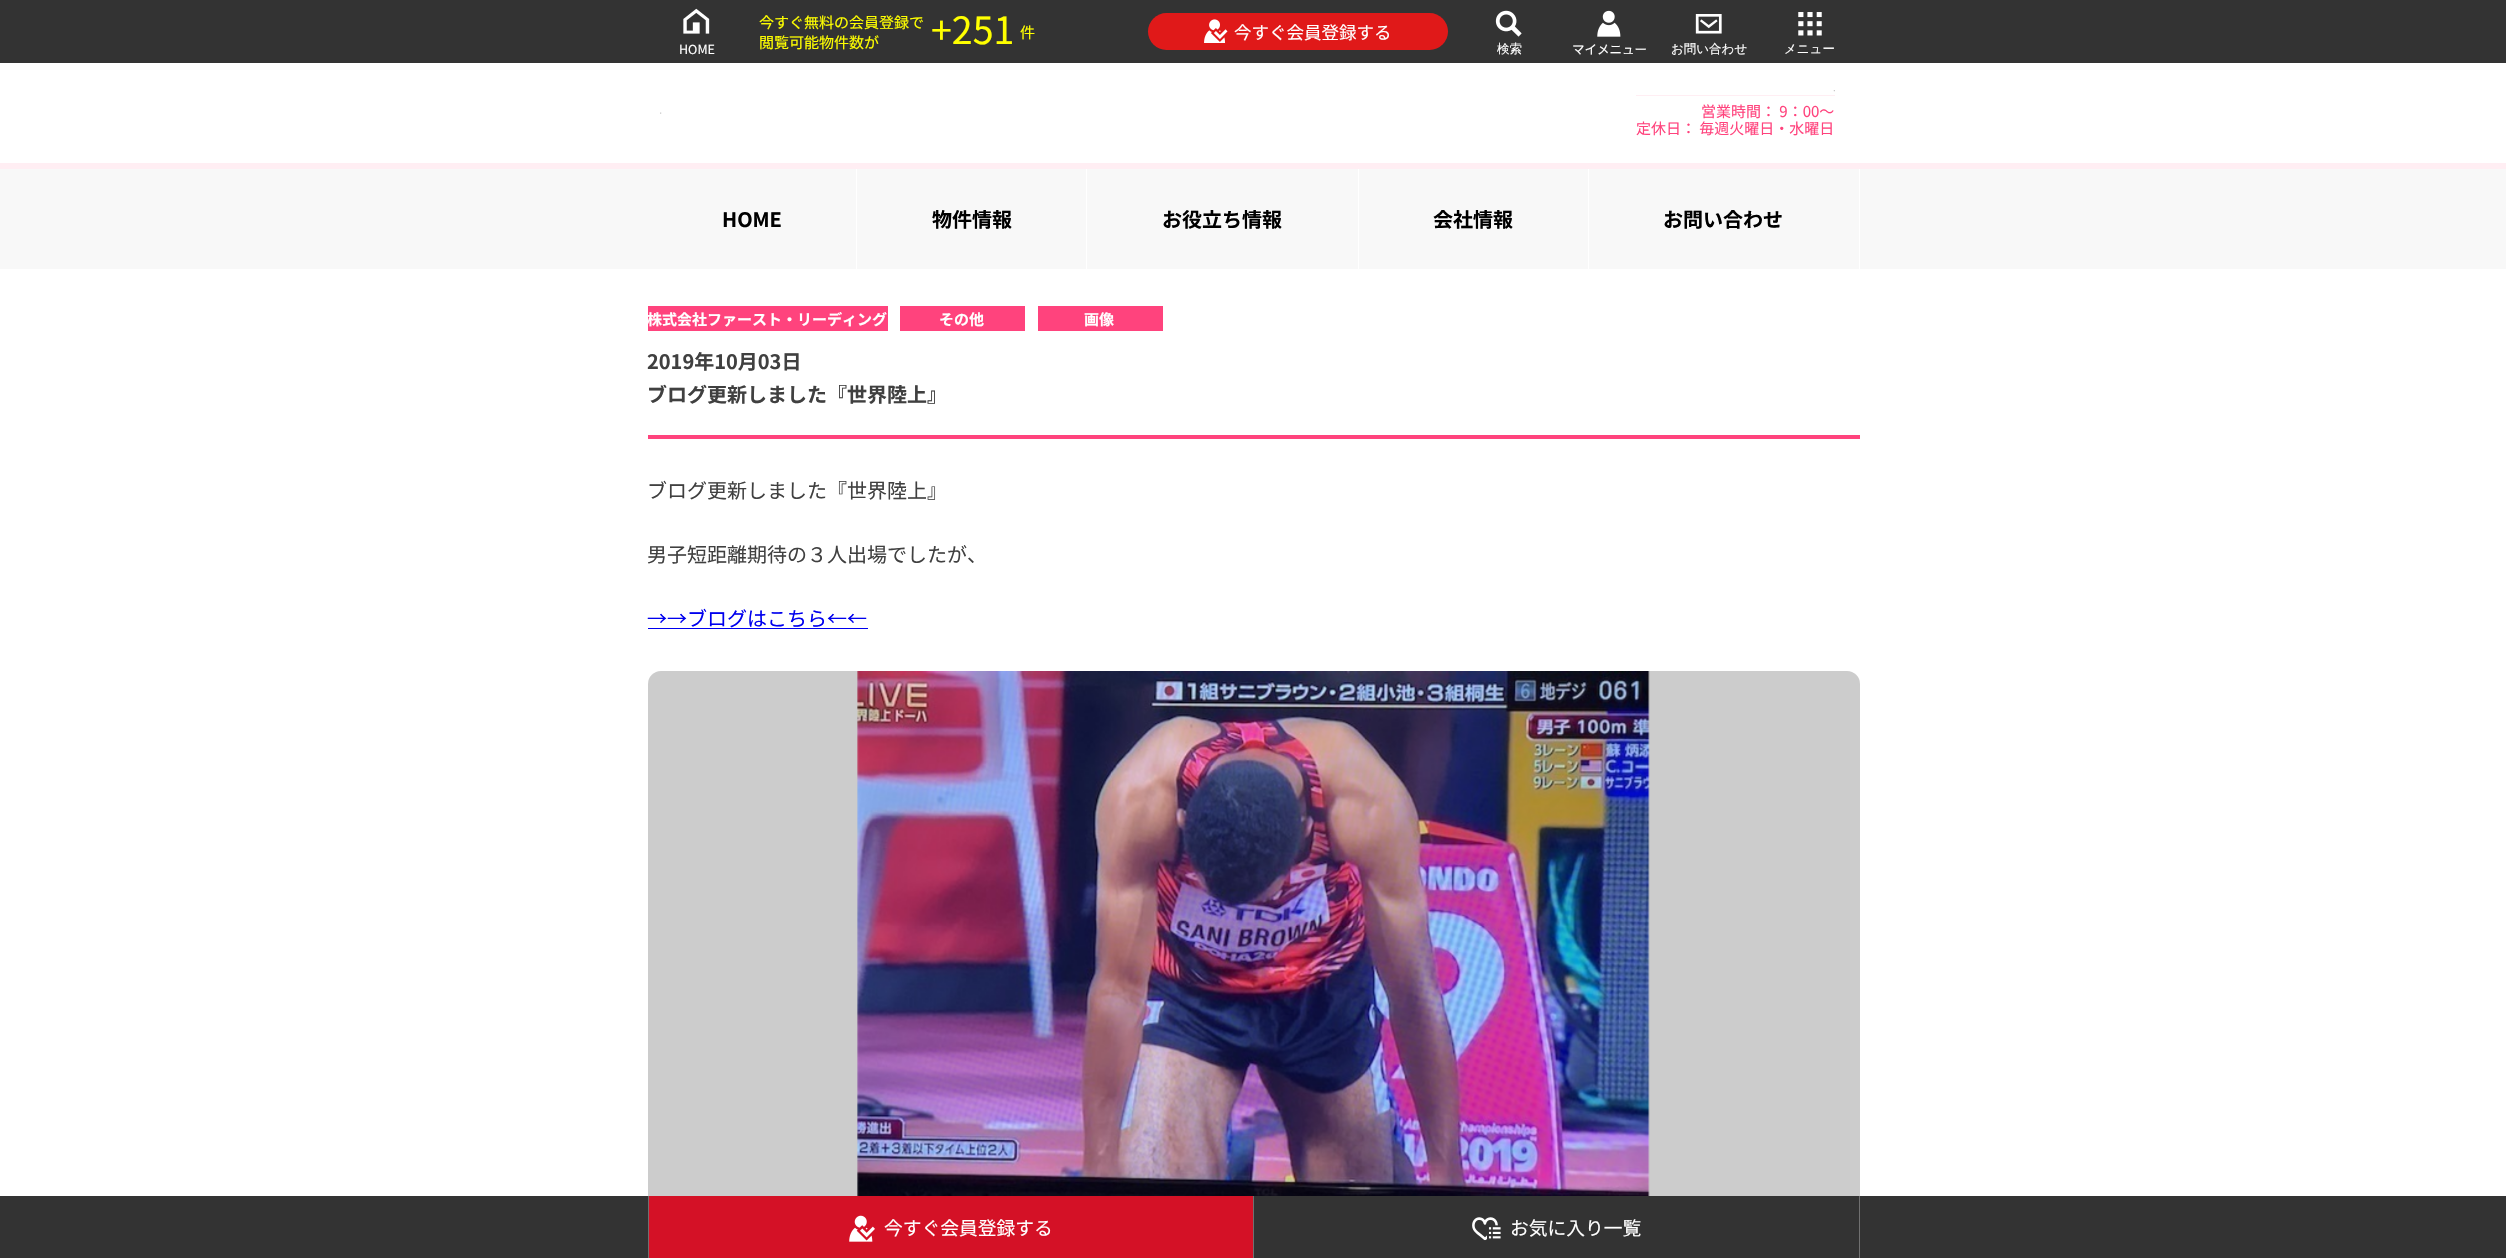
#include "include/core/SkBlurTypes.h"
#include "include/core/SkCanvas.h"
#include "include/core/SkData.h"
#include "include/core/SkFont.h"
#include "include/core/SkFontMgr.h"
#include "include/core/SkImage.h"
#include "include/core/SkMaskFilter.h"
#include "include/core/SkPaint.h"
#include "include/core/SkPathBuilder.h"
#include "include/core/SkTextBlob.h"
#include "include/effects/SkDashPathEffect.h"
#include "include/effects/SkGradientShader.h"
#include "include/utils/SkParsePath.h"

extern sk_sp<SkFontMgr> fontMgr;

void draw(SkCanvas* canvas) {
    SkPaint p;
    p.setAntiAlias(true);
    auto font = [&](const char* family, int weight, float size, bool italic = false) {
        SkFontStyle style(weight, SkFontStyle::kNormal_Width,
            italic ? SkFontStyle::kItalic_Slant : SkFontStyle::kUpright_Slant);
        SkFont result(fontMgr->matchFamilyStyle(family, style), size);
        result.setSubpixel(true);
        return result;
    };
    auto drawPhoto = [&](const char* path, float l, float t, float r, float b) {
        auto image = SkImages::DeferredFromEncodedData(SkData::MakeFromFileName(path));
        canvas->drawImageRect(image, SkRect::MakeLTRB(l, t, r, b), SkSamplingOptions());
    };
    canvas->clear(0xFFFFFFFF);
    p.setColor(0xFF333333);
    canvas->drawRect(SkRect::MakeLTRB(0, 0, 2506, 63), p);
    auto font1 = font("Noto Sans CJK JP", 400, 15);
    p.setColor(0xFFFFFF00);
    canvas->drawString("今すぐ無料の会員登録で", 759, 28, font1, p);
    canvas->drawString("閲覧可能物件数が", 759, 48, font1, p);
    auto font2 = font("Noto Sans CJK JP", 400, 37.5f);
    canvas->drawString("+251", 931, 44, font2, p);
    canvas->drawString("件", 1020, 38, font1, p);
    p.setColor(0xFFE01919);
    canvas->drawRoundRect(SkRect::MakeLTRB(1148, 13, 1448, 50), 18.5f, 18.5f, p);
    drawPhoto("media/1.png", 1204, 19, 1228, 43);
    auto font3 = font("Noto Sans CJK JP", 400, 17.5f);
    p.setColor(0xFFFFFFFF);
    canvas->drawString("今すぐ会員登録する", 1234, 39, font3, p);
    drawPhoto("media/2.png", 683, 8, 710, 34);
    auto font4 = font("Noto Sans CJK JP", 400, 12.5f);
    canvas->drawString("HOME", 679, 54, font4, p);
    drawPhoto("media/3.png", 1495, 10, 1522, 37);
    auto font5 = font("WenQuanYi Zen Hei", 500, 12.5f);
    canvas->drawString("検索", 1497, 53, font5, p);
    drawPhoto("media/4.png", 1597, 10, 1621, 37);
    canvas->drawString("マイメニュー", 1572, 54, font4, p);
    drawPhoto("media/5.png", 1695, 14, 1722, 34);
    canvas->drawString("お問い合わせ", 1671, 53, font5, p);
    drawPhoto("media/6.png", 1798, 12, 1822, 36);
    canvas->drawString("メニュー", 1784, 53, font5, p);
    drawPhoto("media/7.png", 660, 112, 662, 114);
    drawPhoto("media/8.png", 1833, 90, 1835, 92);
    p.setColor(0xFFFFEEF3);
    canvas->drawRect(SkRect::MakeLTRB(1636, 95, 1835, 96), p);
    p.setColor(0xFFFF437D);
    canvas->drawString("営業時間： 9：00～", 1701, 117, font1, p);
    canvas->drawString("定休日： 毎週火曜日・水曜日", 1636, 134, font1, p);
    {
        const struct { float l, t, r, b; SkColor color; } items[] = {
            {0, 169, 2506, 269, 0xFFF8F8F8},
            {0, 163, 2506, 169, 0xFFFFEEF3},
            {856, 169, 857, 269, 0xFFFFFFFF},
        };
        for (auto [l, t, r, b, color] : items) {
            p.setColor(color);
            canvas->drawRect(SkRect::MakeLTRB(l, t, r, b), p);
        }
    }
    auto font6 = font("Noto Sans CJK JP", 700, 20);
    p.setColor(0xFF000000);
    canvas->drawString("HOME", 722, 227, font6, p);
    p.setColor(0xFFFFFFFF);
    canvas->drawRect(SkRect::MakeLTRB(1086, 169, 1087, 269), p);
    p.setColor(0xFF000000);
    canvas->drawString("物件情報", 932, 227, font6, p);
    p.setColor(0xFFFFFFFF);
    canvas->drawRect(SkRect::MakeLTRB(1358, 169, 1359, 269), p);
    p.setColor(0xFF000000);
    canvas->drawString("お役立ち情報", 1162, 227, font6, p);
    p.setColor(0xFFFFFFFF);
    canvas->drawRect(SkRect::MakeLTRB(1588, 169, 1589, 269), p);
    p.setColor(0xFF000000);
    canvas->drawString("会社情報", 1433, 227, font6, p);
    p.setColor(0xFFFFFFFF);
    canvas->drawRect(SkRect::MakeLTRB(1859, 169, 1860, 269), p);
    p.setColor(0xFF000000);
    canvas->drawString("お問い合わせ", 1663, 227, font6, p);
    p.setColor(0xFFFF437D);
    canvas->drawRect(SkRect::MakeLTRB(648, 306, 888, 331), p);
    auto font7 = font("Noto Sans CJK JP", 700, 15);
    p.setColor(0xFFFFFFFF);
    canvas->drawString("株式会社ファースト・リーディング", 647, 325, font7, p);
    p.setColor(0xFFFF437D);
    canvas->drawRect(SkRect::MakeLTRB(900, 306, 1025, 331), p);
    p.setColor(0xFFFFFFFF);
    canvas->drawString("その他", 939, 325, font7, p);
    p.setColor(0xFFFF437D);
    canvas->drawRect(SkRect::MakeLTRB(1038, 306, 1163, 331), p);
    p.setColor(0xFFFFFFFF);
    canvas->drawString("画像", 1084, 325, font7, p);
    p.setColor(0xFFFF437D);
    canvas->drawRect(SkRect::MakeLTRB(648, 435, 1860, 439), p);
    p.setColor(0xFF404040);
    canvas->drawString("2019年10月03日", 647, 369, font6, p);
    canvas->drawString("ブログ更新しました『世界陸上』", 647, 402, font6, p);
    auto font8 = font("Noto Sans CJK JP", 400, 20);
    canvas->drawString("ブログ更新しました『世界陸上』", 647, 498, font8, p);
    canvas->drawString("男子短距離期待の３人出場でしたが、", 647, 562, font8, p);
    p.setColor(0xFF0000EE);
    canvas->drawString("→→ブログはこちら←←", 647, 626, font8, p);
    canvas->drawRect(SkRect::MakeLTRB(648, 628, 868, 629), p);
    p.setColor(0xFFCCCCCC);
    canvas->drawRoundRect(SkRect::MakeLTRB(648, 671, 1860, 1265), 13, 13, p);
    drawPhoto("media/9.png", 857, 671, 1650, 1196);
    {
        const struct { float l, t, r, b; SkColor color; } items[] = {
            {0, 1196, 2506, 1258, 0xFF333333},
            {1253, 1196, 1254, 1258, 0xFF707070},
            {648, 1196, 649, 1258, 0xFF707070},
            {649, 1196, 1253, 1258, 0xFFD41126},
        };
        for (auto [l, t, r, b, color] : items) {
            p.setColor(color);
            canvas->drawRect(SkRect::MakeLTRB(l, t, r, b), p);
        }
    }
    drawPhoto("media/10.png", 849, 1215, 875, 1242);
    auto font9 = font("Noto Sans CJK JP", 400, 18.75f);
    p.setColor(0xFFFFFFFF);
    canvas->drawString("今すぐ会員登録する", 884, 1235, font9, p);
    p.setColor(0xFF707070);
    canvas->drawRect(SkRect::MakeLTRB(1859, 1196, 1860, 1258), p);
    drawPhoto("media/11.png", 1472, 1217, 1501, 1241);
    p.setColor(0xFFFFFFFF);
    canvas->drawString("お気に入り一覧", 1510, 1235, font9, p);
}
